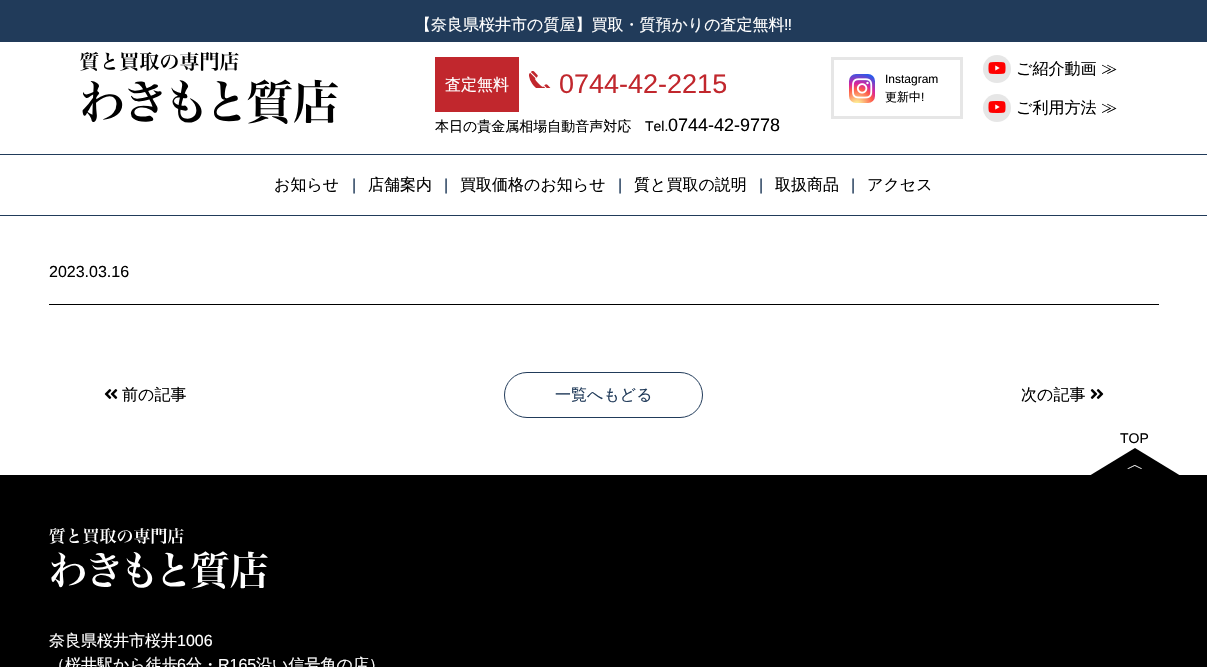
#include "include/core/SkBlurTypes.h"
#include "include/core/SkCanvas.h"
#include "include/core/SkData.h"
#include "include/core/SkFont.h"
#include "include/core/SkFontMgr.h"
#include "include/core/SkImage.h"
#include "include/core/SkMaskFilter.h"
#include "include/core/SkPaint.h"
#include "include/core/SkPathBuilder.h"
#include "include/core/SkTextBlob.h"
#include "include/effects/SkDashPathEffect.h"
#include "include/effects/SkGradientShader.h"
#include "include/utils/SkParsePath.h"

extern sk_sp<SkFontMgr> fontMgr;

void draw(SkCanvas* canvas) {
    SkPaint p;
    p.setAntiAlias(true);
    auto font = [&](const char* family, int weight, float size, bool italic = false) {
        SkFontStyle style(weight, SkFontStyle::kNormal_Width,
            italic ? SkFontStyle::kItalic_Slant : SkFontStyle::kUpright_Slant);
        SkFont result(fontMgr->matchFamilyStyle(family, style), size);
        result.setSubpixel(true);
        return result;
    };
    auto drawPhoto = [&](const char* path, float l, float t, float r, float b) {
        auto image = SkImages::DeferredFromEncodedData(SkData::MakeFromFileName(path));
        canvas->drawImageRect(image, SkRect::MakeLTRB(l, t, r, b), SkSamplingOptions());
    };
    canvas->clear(0xFFFFFFFF);
    p.setColor(0xFF213B5A);
    canvas->drawRect(SkRect::MakeLTRB(0, 0, 1207, 42), p);
    auto font1 = font("WenQuanYi Zen Hei", 500, 16);
    p.setColor(0xFFFFFFFF);
    canvas->drawString("【奈良県桜井市の質屋】買取・質預かりの査定無料", 415, 30, font1, p);
    auto font2 = font("Liberation Sans", 400, 16);
    canvas->drawString("‼", 784, 30, font2, p);
    drawPhoto("media/1.png", 80, 52, 338, 124);
    p.setColor(0xFFC1272D);
    canvas->drawRect(SkRect::MakeLTRB(435, 57, 519, 112), p);
    p.setColor(0xFFFFFFFF);
    canvas->drawString("査定無料", 445, 90, font1, p);
    drawPhoto("media/2.png", 529, 71, 551, 88);
    auto font3 = font("Liberation Sans", 400, 27);
    p.setColor(0xFFC1272D);
    canvas->drawString("0744-42-2215", 559, 93, font3, p);
    auto font4 = font("WenQuanYi Zen Hei", 500, 14);
    p.setColor(0xFF000000);
    canvas->drawString("本日の貴金属相場自動音声対応", 435, 131, font4, p);
    auto font5 = font("Liberation Sans", 400, 14);
    canvas->drawString("Tel.", 645, 131, font5, p);
    auto font6 = font("Liberation Sans", 400, 18);
    canvas->drawString("0744-42-9778", 668, 131, font6, p);
    p.setStyle(SkPaint::kStroke_Style);
    p.setStrokeWidth(3);
    p.setColor(0xFFE6E6E6);
    canvas->drawRect(SkRect::MakeLTRB(832.5f, 58.5f, 961.5f, 117.5f), p);
    p.setStyle(SkPaint::kFill_Style);
    {
        const SkColor colors[] = {0xFFFDF497, 0xFFFDF497, 0xFFFD5949, 0xFFD6249F, 0xFF285AEB};
        const float stops[] = {0, 0.05f, 0.45f, 0.6f, 0.9f};
        p.setShader(SkGradientShader::MakeRadial({857, 105}, 36, colors, stops, 5, SkTileMode::kClamp));
        p.setAlpha(255);
    }
    canvas->drawRoundRect(SkRect::MakeLTRB(849, 74, 875, 103), 7, 7, p);
    drawPhoto("media/3.png", 852, 78, 873, 99);
    auto font7 = font("Liberation Sans", 400, 12);
    p.setShader(nullptr);
    p.setColor(0xFF000000);
    canvas->drawString("Instagram", 885, 83, font7, p);
    auto font8 = font("WenQuanYi Zen Hei", 500, 12);
    canvas->drawString("更新中", 885, 101, font8, p);
    canvas->drawString("!", 921, 101, font7, p);
    p.setColor(0xFFE6E6E6);
    canvas->drawCircle(997, 69, 14, p);
    p.setColor(0xFF000000);
    canvas->drawString("ご紹介動画 ≫", 1016, 74, font1, p);
    p.setColor(0xFFFFFFFF);
    canvas->drawRect(SkRect::MakeLTRB(995, 65, 1000, 71), p);
    drawPhoto("media/4.png", 988, 62, 1006, 74);
    p.setColor(0xFFE6E6E6);
    canvas->drawCircle(997, 108, 14, p);
    p.setColor(0xFF000000);
    canvas->drawString("ご利用方法 ≫", 1016, 113, font1, p);
    p.setColor(0xFFFFFFFF);
    canvas->drawRect(SkRect::MakeLTRB(995, 104, 1000, 110), p);
    drawPhoto("media/4.png", 988, 101, 1006, 113);
    p.setColor(0xFF213B5A);
    canvas->drawRect(SkRect::MakeLTRB(0, 154, 1207, 155), p);
    canvas->drawRect(SkRect::MakeLTRB(0, 215, 1207, 216), p);
    p.setColor(0xFF000000);
    canvas->drawString("お知らせ", 274, 190, font1, p);
    p.setColor(0xFF213B5A);
    canvas->drawString("|", 352, 190, font2, p);
    p.setColor(0xFF000000);
    canvas->drawString("店舗案内", 368, 190, font1, p);
    p.setColor(0xFF213B5A);
    canvas->drawString("|", 444, 190, font2, p);
    p.setColor(0xFF000000);
    canvas->drawString("買取価格のお知らせ", 460, 190, font1, p);
    p.setColor(0xFF213B5A);
    canvas->drawString("|", 618, 190, font2, p);
    p.setColor(0xFF000000);
    canvas->drawString("質と買取の説明", 634, 190, font1, p);
    p.setColor(0xFF213B5A);
    canvas->drawString("|", 759, 190, font2, p);
    p.setColor(0xFF000000);
    canvas->drawString("取扱商品", 775, 190, font1, p);
    p.setColor(0xFF213B5A);
    canvas->drawString("|", 851, 190, font2, p);
    p.setColor(0xFF000000);
    canvas->drawString("アクセス", 867, 190, font1, p);
    canvas->drawRect(SkRect::MakeLTRB(49, 304, 1159, 305), p);
    canvas->drawString("2023.03.16", 49, 277, font2, p);
    drawPhoto("media/5.png", 104, 389, 118, 399);
    canvas->drawString("前の記事", 122, 400, font1, p);
    p.setStyle(SkPaint::kStroke_Style);
    p.setStrokeWidth(1);
    p.setColor(0xFF213B5A);
    canvas->drawRoundRect(SkRect::MakeLTRB(504.5f, 372.5f, 702.5f, 417.5f), 22.5f, 22.5f, p);
    p.setStyle(SkPaint::kFill_Style);
    canvas->drawString("一覧へもどる", 555, 400, font1, p);
    p.setColor(0xFF000000);
    canvas->drawString("次の記事", 1021, 400, font1, p);
    drawPhoto("media/6.png", 1090, 389, 1104, 399);
    canvas->drawRect(SkRect::MakeLTRB(0, 475, 1207, 667), p);
    canvas->drawString("TOP", 1120, 443, font5, p);
    canvas->drawPath(SkPathBuilder().moveTo(1181, 476).lineTo(1089, 476).lineTo(1135, 448).close().detach(), p);
    p.setColor(0xFFFFFFFF);
    canvas->save();
    canvas->rotate(90, 1129, 455);
    canvas->drawString("〈", 1129, 455, font1, p);
    canvas->restore();
    drawPhoto("media/7.png", 49, 528, 268, 589);
    canvas->drawString("奈良県桜井市桜井", 49, 646, font1, p);
    canvas->drawString("1006", 177, 646, font2, p);
    canvas->drawString("（桜井駅から徒歩", 49, 670, font1, p);
    canvas->drawString("6", 177, 670, font2, p);
    canvas->drawString("分・", 186, 670, font1, p);
    canvas->drawString("R165", 218, 670, font2, p);
    canvas->drawString("沿い信号角の店）", 256, 670, font1, p);
}
